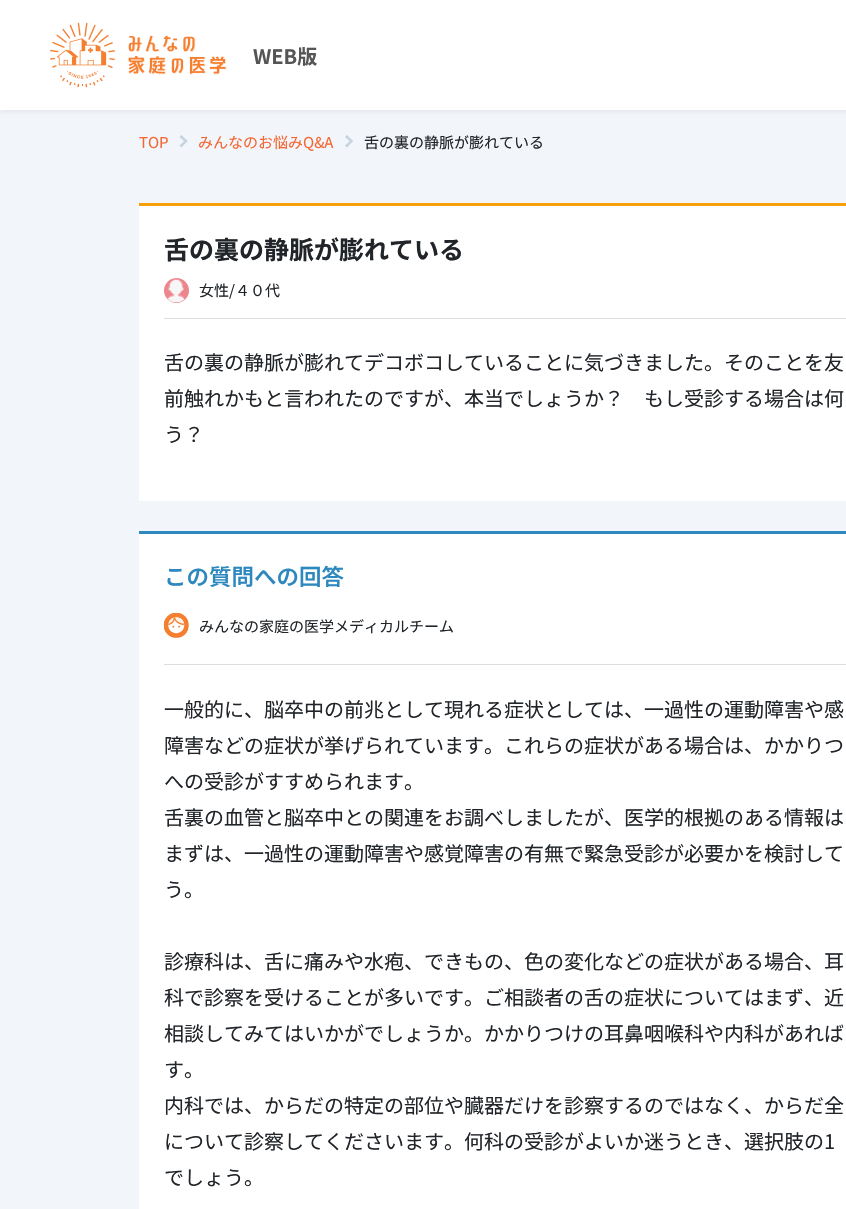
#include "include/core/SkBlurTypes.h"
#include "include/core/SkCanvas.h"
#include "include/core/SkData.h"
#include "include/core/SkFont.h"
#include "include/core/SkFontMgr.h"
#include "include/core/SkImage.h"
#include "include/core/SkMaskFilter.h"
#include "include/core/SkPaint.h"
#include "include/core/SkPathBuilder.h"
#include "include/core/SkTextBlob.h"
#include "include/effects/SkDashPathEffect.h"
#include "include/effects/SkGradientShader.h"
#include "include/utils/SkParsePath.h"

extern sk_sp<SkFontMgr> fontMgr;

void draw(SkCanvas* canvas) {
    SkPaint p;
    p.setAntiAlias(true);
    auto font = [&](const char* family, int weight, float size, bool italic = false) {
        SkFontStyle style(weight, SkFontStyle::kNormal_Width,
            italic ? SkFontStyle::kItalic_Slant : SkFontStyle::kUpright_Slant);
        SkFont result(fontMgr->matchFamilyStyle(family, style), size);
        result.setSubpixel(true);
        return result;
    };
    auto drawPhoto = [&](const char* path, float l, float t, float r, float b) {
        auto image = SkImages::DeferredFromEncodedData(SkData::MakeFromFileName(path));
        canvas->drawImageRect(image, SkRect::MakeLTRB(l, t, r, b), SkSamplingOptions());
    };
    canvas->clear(0xFFF2F5FA);
    p.setColor(0x14000000);
    p.setMaskFilter(SkMaskFilter::MakeBlur(kNormal_SkBlurStyle, 2.5f));
    canvas->drawRect(SkRect::MakeLTRB(0, 1, 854, 111), p);
    p.setMaskFilter(nullptr);
    p.setColor(0xFFFFFFFF);
    canvas->drawRect(SkRect::MakeLTRB(0, 0, 846, 110), p);
    drawPhoto("media/1.png", 50, 23, 227, 88);
    auto font1 = font("Noto Sans JP", 700, 20);
    p.setColor(0xFF555555);
    canvas->drawString("WEB版", 253, 64, font1, p);
    auto font2 = font("Noto Sans JP", 400, 15);
    p.setColor(0xFFF56531);
    canvas->drawString("TOP", 139, 148, font2, p);
    p.setColor(0xFFC5D4DE);
    canvas->drawPath(SkPathBuilder().moveTo(181.5f, 135).lineTo(187.5f, 141).lineTo(186, 143).lineTo(179.5f, 137).close().detach(), p);
    canvas->drawPath(SkPathBuilder().moveTo(186, 139.5f).lineTo(187.5f, 141).lineTo(181.5f, 147.5f).lineTo(179.5f, 145.5f).close().detach(), p);
    p.setColor(0xFFF56531);
    canvas->drawString("みんなのお悩みQ&A", 198, 148, font2, p);
    p.setColor(0xFFC5D4DE);
    canvas->drawPath(SkPathBuilder().moveTo(347, 135).lineTo(353, 141).lineTo(351.5f, 143).lineTo(345, 137).close().detach(), p);
    canvas->drawPath(SkPathBuilder().moveTo(351.5f, 139.5f).lineTo(353, 141).lineTo(347, 147.5f).lineTo(345, 145.5f).close().detach(), p);
    p.setColor(0xFF212529);
    canvas->drawString("舌の裏の静脈が膨れている", 364, 148, font2, p);
    p.setColor(0xFFFFFFFF);
    canvas->drawRect(SkRect::MakeLTRB(139, 206, 846, 501), p);
    p.setColor(0xFFF7A00A);
    canvas->drawRect(SkRect::MakeLTRB(139, 203, 846, 206), p);
    auto font3 = font("Noto Sans JP", 700, 25);
    p.setColor(0xFF212529);
    canvas->drawString("舌の裏の静脈が膨れている", 164, 259, font3, p);
    p.setColor(0xFFDCDDE0);
    canvas->drawRect(SkRect::MakeLTRB(164, 318, 846, 319), p);
    p.setColor(0xFFED858C);
    canvas->drawCircle(176.5f, 290.5f, 12.5f, p);
    drawPhoto("media/2.png", 167, 278, 185, 303);
    p.setColor(0xFF212529);
    canvas->drawString("女性/４０代", 199, 296, font2, p);
    auto font4 = font("Noto Sans JP", 400, 20);
    {
        const struct { const char* s; float x, y; } items[] = {
            {"舌の裏の静脈が膨れてデコボコしていることに気づきました。そのことを友", 164, 370},
            {"前触れかもと言われたのですが、本当でしょうか？　もし受診する場合は何", 164, 406},
            {"う？", 164, 442},
        };
        for (auto [s, x, y] : items) {
            canvas->drawString(s, x, y, font4, p);
        }
    }
    p.setColor(0xFFFFFFFF);
    canvas->drawRect(SkRect::MakeLTRB(139, 534, 846, 1209), p);
    p.setColor(0xFF2C88BE);
    canvas->drawRect(SkRect::MakeLTRB(139, 531, 846, 534), p);
    auto font5 = font("Noto Sans JP", 600, 22.5f);
    canvas->drawString("この質問への回答", 164, 585, font5, p);
    p.setColor(0xFFDCDDE0);
    canvas->drawRect(SkRect::MakeLTRB(164, 664, 846, 665), p);
    drawPhoto("media/3.png", 163, 612, 189, 638);
    p.setColor(0xFF212529);
    canvas->drawString("みんなの家庭の医学メディカルチーム", 199, 632, font2, p);
    {
        const struct { const char* s; float x, y; } items[] = {
            {"一般的に、脳卒中の前兆として現れる症状としては、一過性の運動障害や感", 164, 717},
            {"障害などの症状が挙げられています。これらの症状がある場合は、かかりつ", 164, 753},
            {"への受診がすすめられます。", 164, 789},
            {"舌裏の血管と脳卒中との関連をお調べしましたが、医学的根拠のある情報は", 164, 825},
            {"まずは、一過性の運動障害や感覚障害の有無で緊急受診が必要かを検討して", 164, 861},
            {"う。", 164, 897},
            {"診療科は、舌に痛みや水疱、できもの、色の変化などの症状がある場合、耳", 164, 969},
            {"科で診察を受けることが多いです。ご相談者の舌の症状についてはまず、近", 164, 1005},
            {"相談してみてはいかがでしょうか。かかりつけの耳鼻咽喉科や内科があれば", 164, 1041},
            {"す。", 164, 1077},
            {"内科では、からだの特定の部位や臓器だけを診察するのではなく、からだ全", 164, 1113},
            {"について診察してくださいます。何科の受診がよいか迷うとき、選択肢の1", 164, 1149},
            {"でしょう。", 164, 1185},
        };
        for (auto [s, x, y] : items) {
            canvas->drawString(s, x, y, font4, p);
        }
    }
}
